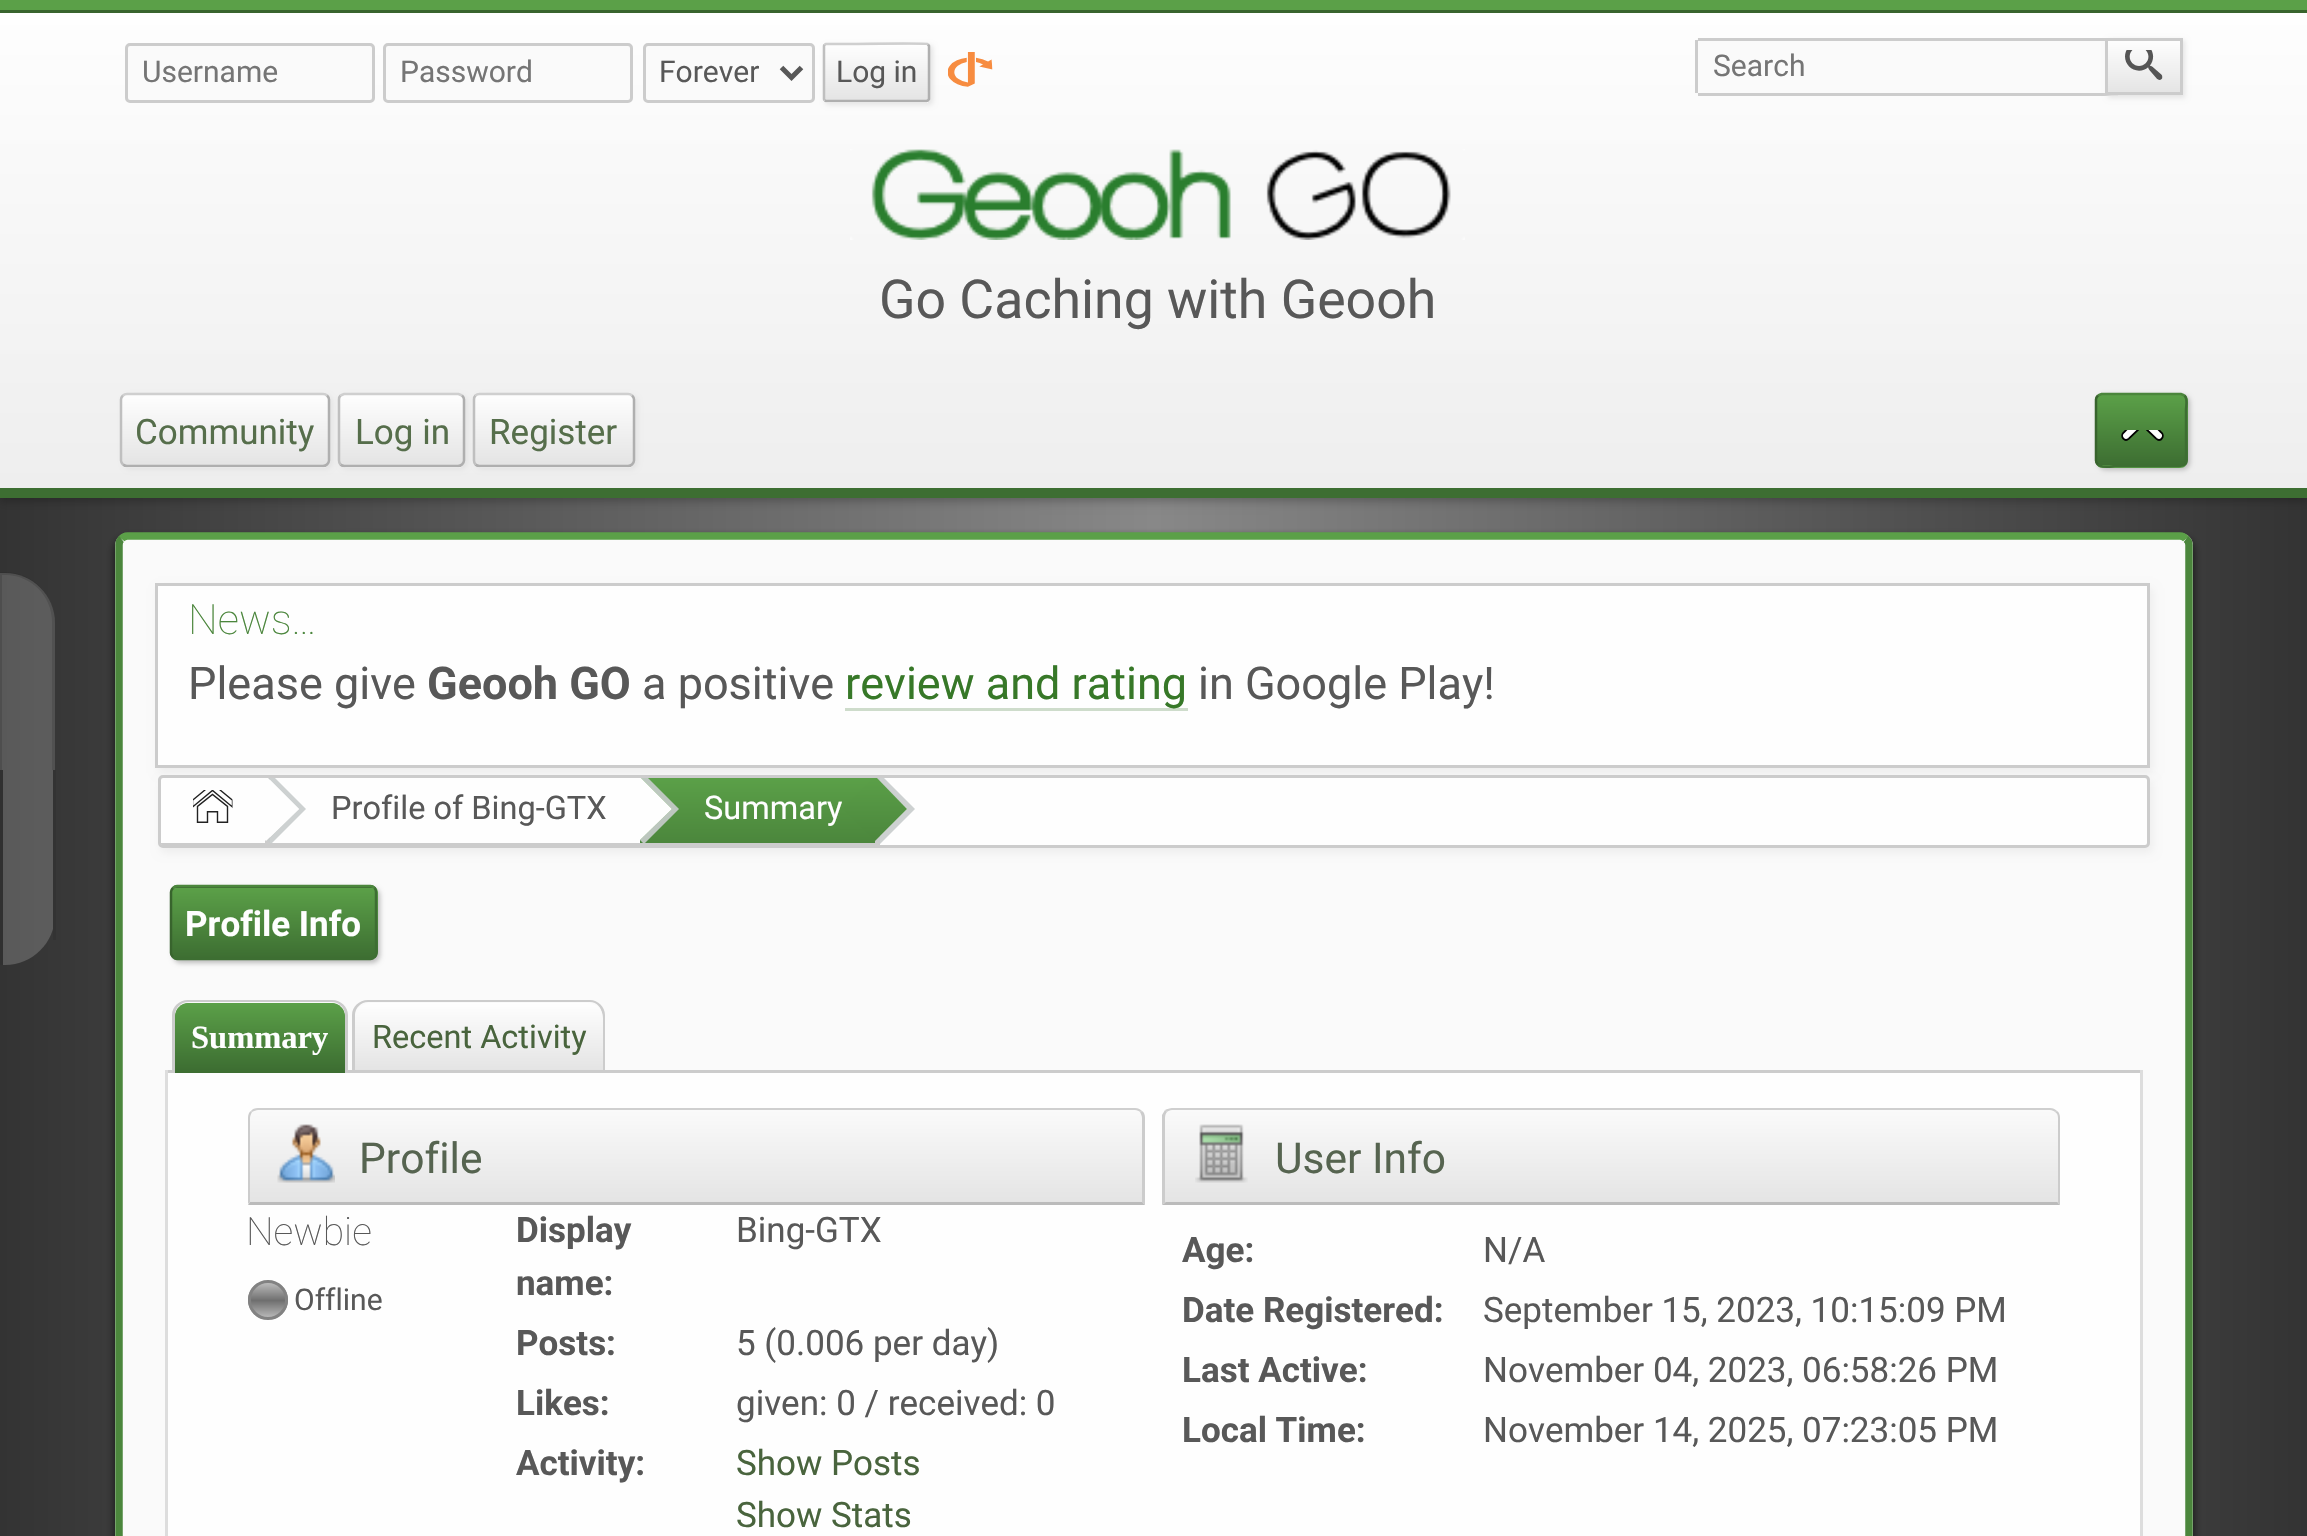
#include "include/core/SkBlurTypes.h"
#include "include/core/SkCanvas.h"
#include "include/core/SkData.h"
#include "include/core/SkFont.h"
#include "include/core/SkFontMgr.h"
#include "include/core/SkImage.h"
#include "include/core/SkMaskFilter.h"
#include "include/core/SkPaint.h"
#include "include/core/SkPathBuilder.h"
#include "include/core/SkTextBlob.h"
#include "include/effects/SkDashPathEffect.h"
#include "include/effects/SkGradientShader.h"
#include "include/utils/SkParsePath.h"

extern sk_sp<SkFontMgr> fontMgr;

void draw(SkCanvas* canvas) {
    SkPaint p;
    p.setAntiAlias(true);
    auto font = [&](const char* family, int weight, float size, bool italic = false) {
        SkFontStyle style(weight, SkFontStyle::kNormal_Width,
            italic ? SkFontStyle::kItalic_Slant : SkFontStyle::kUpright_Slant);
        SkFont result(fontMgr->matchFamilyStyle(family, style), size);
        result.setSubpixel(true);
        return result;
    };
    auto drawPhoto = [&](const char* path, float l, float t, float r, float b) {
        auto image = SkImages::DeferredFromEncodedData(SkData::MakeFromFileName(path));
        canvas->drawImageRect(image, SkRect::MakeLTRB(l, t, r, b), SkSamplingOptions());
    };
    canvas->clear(0xFFFFFFFF);
    {
        const SkColor colors[] = {0xFF333333, 0xFF888888, 0xFF333333};
        const float stops[] = {0, 0.5f, 1};
        const SkPoint ends[] = {{0, 1231}, {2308, 1231}};
        p.setShader(SkGradientShader::MakeLinear(ends, colors, stops, 3, SkTileMode::kClamp));
        p.setAlpha(255);
    }
    canvas->drawRect(SkRect::MakeLTRB(0, 498, 2307, 1536), p);
    p.setShader(nullptr);
    p.setColor(0x4D000000);
    p.setMaskFilter(SkMaskFilter::MakeBlur(kNormal_SkBlurStyle, 5));
    canvas->drawRect(SkRect::MakeLTRB(0, 3, 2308, 500), p);
    p.setMaskFilter(nullptr);
    {
        const SkColor colors[] = {0xFFFEFEFE, 0xFFEEEEEE};
        const float stops[] = {0, 1};
        const SkPoint ends[] = {{1154, 10}, {1154, 488}};
        p.setShader(SkGradientShader::MakeLinear(ends, colors, stops, 2, SkTileMode::kClamp));
        p.setAlpha(255);
    }
    canvas->drawRect(SkRect::MakeLTRB(0, 13, 2307, 488), p);
    p.setShader(nullptr);
    {
        const struct { float l, t, r, b; SkColor color; } items[] = {
            {0, 10, 2307, 13, 0xFF38642D},
            {0, 0, 2307, 10, 0xFF5BA048},
            {0, 488, 2307, 498, 0xFF3D6E32},
        };
        for (auto [l, t, r, b, color] : items) {
            p.setColor(color);
            canvas->drawRect(SkRect::MakeLTRB(l, t, r, b), p);
        }
    }
    p.setColor(0xFFFAFAFA);
    canvas->drawRoundRect(SkRect::MakeLTRB(126.5f, 44.5f, 373.5f, 101.5f), 3.5f, 3.5f, p);
    p.setStyle(SkPaint::kStroke_Style);
    p.setStrokeWidth(3);
    p.setColor(0xFFCCCCCC);
    canvas->drawRoundRect(SkRect::MakeLTRB(126.5f, 44.5f, 373.5f, 101.5f), 3.5f, 3.5f, p);
    auto font1 = font("Roboto", 400, 30);
    p.setStyle(SkPaint::kFill_Style);
    p.setColor(0xFF757575);
    canvas->drawString("Username", 142, 82, font1, p);
    p.setColor(0xFFFAFAFA);
    canvas->drawRoundRect(SkRect::MakeLTRB(384.5f, 44.5f, 631.5f, 101.5f), 3.5f, 3.5f, p);
    p.setStyle(SkPaint::kStroke_Style);
    p.setColor(0xFFCCCCCC);
    canvas->drawRoundRect(SkRect::MakeLTRB(384.5f, 44.5f, 631.5f, 101.5f), 3.5f, 3.5f, p);
    p.setStyle(SkPaint::kFill_Style);
    p.setColor(0xFF757575);
    canvas->drawString("Password", 400, 82, font1, p);
    p.setColor(0xFFFAFAFA);
    canvas->drawRoundRect(SkRect::MakeLTRB(644.5f, 44.5f, 813.5f, 101.5f), 3.5f, 3.5f, p);
    p.setStyle(SkPaint::kStroke_Style);
    p.setColor(0xFFCCCCCC);
    canvas->drawRoundRect(SkRect::MakeLTRB(644.5f, 44.5f, 813.5f, 101.5f), 3.5f, 3.5f, p);
    p.setStrokeWidth(5);
    p.setColor(0xFF585858);
    canvas->drawPath(SkPathBuilder().moveTo(781.5f, 67.5f).lineTo(791.5f, 77.5f).lineTo(801.5f, 67.5f).detach(), p);
    p.setStyle(SkPaint::kFill_Style);
    canvas->drawString("Forever", 659, 82, font1, p);
    p.setColor(0xFFE5E5E5);
    p.setMaskFilter(SkMaskFilter::MakeBlur(kNormal_SkBlurStyle, 2.5f));
    canvas->drawRoundRect(SkRect::MakeLTRB(825, 45, 933, 105), 4, 4, p);
    p.setMaskFilter(nullptr);
    {
        const SkColor colors[] = {0xFFFEFEFE, 0xFFE4E4E4};
        const float stops[] = {0, 1};
        const SkPoint ends[] = {{876, 45}, {876, 100}};
        p.setShader(SkGradientShader::MakeLinear(ends, colors, stops, 2, SkTileMode::kClamp));
        p.setAlpha(255);
    }
    canvas->drawRect(SkRect::MakeLTRB(825, 45, 930, 100), p);
    canvas->save();
    canvas->clipPath(SkPathBuilder().moveTo(827, 43).lineTo(926, 43).cubicTo(928, 43, 930, 45, 930, 47).lineTo(930, 99).cubicTo(930, 101, 928, 103, 926, 103).lineTo(827, 103).cubicTo(825, 103, 823, 101, 823, 99).lineTo(823, 47).cubicTo(823, 45, 825, 43, 827, 43).close().detach(), true);
    {
        const SkColor colors[] = {0xFFFEFEFE, 0xFFE4E4E4};
        const float stops[] = {0, 1};
        const SkPoint ends[] = {{876, 100}, {876, 155}};
        p.setShader(SkGradientShader::MakeLinear(ends, colors, stops, 2, SkTileMode::kClamp));
        p.setAlpha(255);
    }
    canvas->drawRect(SkRect::MakeLTRB(823, 100, 930, 103), p);
    canvas->restore();
    p.setStyle(SkPaint::kStroke_Style);
    p.setStrokeWidth(2.5f);
    p.setShader(nullptr);
    p.setColor(0xFFCFCFCF);
    canvas->drawPath(SkPathBuilder().moveTo(824.5f, 44.5f).lineTo(826, 44).lineTo(843, 44).cubicTo(851.5f, 44, 925.5f, 43, 927.5f, 44).lineTo(928, 44.5f).detach(), p);
    p.setColor(0xFFAFAFAF);
    canvas->drawPath(SkPathBuilder().moveTo(928, 44.5f).lineTo(929, 46).lineTo(929, 99).lineTo(928, 100.5f).lineTo(926.5f, 101).lineTo(826, 101).lineTo(824.5f, 100.5f).detach(), p);
    p.setColor(0xFFBFBFBF);
    canvas->drawPath(SkPathBuilder().moveTo(824.5f, 100.5f).lineTo(824, 99).lineTo(824, 46).lineTo(824.5f, 44.5f).detach(), p);
    p.setStyle(SkPaint::kFill_Style);
    p.setColor(0xFF585858);
    canvas->drawString("Log in", 836, 82, font1, p);
    drawPhoto("media/1.png", 948, 52, 993, 87);
    p.setColor(0xFFFAFAFA);
    canvas->drawPath(SkPathBuilder().moveTo(1700, 38).lineTo(2118, 38).lineTo(2118, 95).lineTo(1700, 95).cubicTo(1697, 95, 1695, 93, 1695, 90).lineTo(1695, 43).cubicTo(1695, 40, 1697, 38, 1700, 38).close().detach(), p);
    {
        const struct { float l, t, r, b; SkColor color; } items[] = {
            {1698, 38, 2105, 41, 0xFFCCCCCC},
            {1698, 93, 2118, 96, 0xFFCCCCCC},
            {1695, 40, 1698, 93, 0xFFCCCCCC},
        };
        for (auto [l, t, r, b, color] : items) {
            p.setColor(color);
            canvas->drawRect(SkRect::MakeLTRB(l, t, r, b), p);
        }
    }
    p.setColor(0xFF757575);
    canvas->drawString("Search", 1713, 76, font1, p);
    p.setColor(0xFFE5E5E5);
    p.setMaskFilter(SkMaskFilter::MakeBlur(kNormal_SkBlurStyle, 2.5f));
    canvas->drawRect(SkRect::MakeLTRB(2108, 40, 2185, 98), p);
    p.setMaskFilter(nullptr);
    {
        const SkColor colors[] = {0xFFFEFEFE, 0xFFE4E4E4};
        const float stops[] = {0, 1};
        const SkPoint ends[] = {{2144, 40}, {2144, 93}};
        p.setShader(SkGradientShader::MakeLinear(ends, colors, stops, 2, SkTileMode::kClamp));
        p.setAlpha(255);
    }
    canvas->drawRect(SkRect::MakeLTRB(2108, 41, 2180, 92), p);
    p.setStyle(SkPaint::kStroke_Style);
    p.setStrokeWidth(3);
    p.setShader(nullptr);
    p.setColor(0xFFCCCCCC);
    canvas->drawRect(SkRect::MakeLTRB(2106.5f, 39.5f, 2181.5f, 93.5f), p);
    drawPhoto("media/2.png", 2125, 50, 2163, 80);
    drawPhoto("media/3.png", 850, 149, 1465, 240);
    auto font2 = font("Roboto", 400, 53.6f);
    p.setStyle(SkPaint::kFill_Style);
    p.setColor(0xFF585858);
    canvas->drawString("Go Caching with Geooh", 879, 318, font2, p);
    p.setColor(0xFFE4E4E4);
    p.setMaskFilter(SkMaskFilter::MakeBlur(kNormal_SkBlurStyle, 2.5f));
    canvas->drawRoundRect(SkRect::MakeLTRB(123, 395, 333, 470), 8, 8, p);
    p.setMaskFilter(nullptr);
    canvas->save();
    canvas->clipPath(SkPathBuilder().moveTo(128, 393).lineTo(322, 393).cubicTo(326.5f, 393, 330, 396.5f, 330, 401).lineTo(330, 460).cubicTo(330, 464.5f, 326.5f, 468, 322, 468).lineTo(128, 468).cubicTo(123.5f, 468, 120, 464.5f, 120, 460).lineTo(120, 401).cubicTo(120, 396.5f, 123.5f, 393, 128, 393).close().detach(), true);
    {
        const SkColor colors[] = {0xFFFEFEFE, 0xFFE4E4E4};
        const float stops[] = {0, 1};
        const SkPoint ends[] = {{225, 395}, {225, 465}};
        p.setShader(SkGradientShader::MakeLinear(ends, colors, stops, 2, SkTileMode::kClamp));
        p.setAlpha(255);
    }
    canvas->drawRect(SkRect::MakeLTRB(120, 395, 330, 465), p);
    {
        const SkColor colors[] = {0xFFFEFEFE, 0xFFE4E4E4};
        const float stops[] = {0, 1};
        const SkPoint ends[] = {{225, 465}, {225, 535}};
        p.setShader(SkGradientShader::MakeLinear(ends, colors, stops, 2, SkTileMode::kClamp));
        p.setAlpha(255);
    }
    canvas->drawRect(SkRect::MakeLTRB(120, 465, 330, 468), p);
    canvas->restore();
    p.setStyle(SkPaint::kStroke_Style);
    p.setStrokeWidth(2.5f);
    p.setShader(nullptr);
    p.setColor(0xFFCFCFCF);
    canvas->drawPath(SkPathBuilder().moveTo(123, 395.5f).cubicTo(124, 394.5f, 125.5f, 394, 127, 394).lineTo(323, 394).cubicTo(324.5f, 394, 326, 394.5f, 327, 395.5f).detach(), p);
    p.setColor(0xFFAFAFAF);
    canvas->drawPath(SkPathBuilder().moveTo(327, 395.5f).cubicTo(328, 396.5f, 329, 398, 329, 399.5f).lineTo(329, 460.5f).cubicTo(329, 462, 328, 463.5f, 327, 464.5f).cubicTo(326, 465.5f, 324.5f, 466, 323, 466).lineTo(127, 466).cubicTo(125.5f, 466, 124, 465.5f, 123, 464.5f).detach(), p);
    p.setColor(0xFFBFBFBF);
    canvas->drawPath(SkPathBuilder().moveTo(123, 464.5f).cubicTo(122, 463.5f, 121, 462, 121, 460.5f).lineTo(121, 399.5f).cubicTo(121, 398, 122, 396.5f, 123, 395.5f).detach(), p);
    auto font3 = font("Roboto", 400, 35);
    p.setStyle(SkPaint::kFill_Style);
    p.setColor(0xFF566E4B);
    canvas->drawString("Community", 135, 444, font3, p);
    p.setColor(0xFFE4E4E4);
    p.setMaskFilter(SkMaskFilter::MakeBlur(kNormal_SkBlurStyle, 2.5f));
    canvas->drawRoundRect(SkRect::MakeLTRB(340, 395, 468, 470), 8, 8, p);
    p.setMaskFilter(nullptr);
    canvas->save();
    canvas->clipPath(SkPathBuilder().moveTo(346, 393).lineTo(457, 393).cubicTo(461.5f, 393, 465, 396.5f, 465, 401).lineTo(465, 460).cubicTo(465, 464.5f, 461.5f, 468, 457, 468).lineTo(346, 468).cubicTo(341.5f, 468, 338, 464.5f, 338, 460).lineTo(338, 401).cubicTo(338, 396.5f, 341.5f, 393, 346, 393).close().detach(), true);
    {
        const SkColor colors[] = {0xFFFEFEFE, 0xFFE4E4E4};
        const float stops[] = {0, 1};
        const SkPoint ends[] = {{401, 395}, {401, 465}};
        p.setShader(SkGradientShader::MakeLinear(ends, colors, stops, 2, SkTileMode::kClamp));
        p.setAlpha(255);
    }
    canvas->drawRect(SkRect::MakeLTRB(338, 395, 465, 465), p);
    {
        const SkColor colors[] = {0xFFFEFEFE, 0xFFE4E4E4};
        const float stops[] = {0, 1};
        const SkPoint ends[] = {{401, 465}, {401, 535}};
        p.setShader(SkGradientShader::MakeLinear(ends, colors, stops, 2, SkTileMode::kClamp));
        p.setAlpha(255);
    }
    canvas->drawRect(SkRect::MakeLTRB(338, 465, 465, 468), p);
    canvas->restore();
    p.setStyle(SkPaint::kStroke_Style);
    p.setShader(nullptr);
    p.setColor(0xFFCFCFCF);
    canvas->drawPath(SkPathBuilder().moveTo(340.5f, 395.5f).lineTo(344, 394).lineTo(458.5f, 394).lineTo(462, 395.5f).detach(), p);
    p.setColor(0xFFAFAFAF);
    canvas->drawPath(SkPathBuilder().moveTo(462, 395.5f).cubicTo(463, 396.5f, 464, 398, 464, 399.5f).lineTo(464, 460.5f).cubicTo(464, 462, 463, 463.5f, 462, 464.5f).cubicTo(461, 465.5f, 459.5f, 466, 458, 466).lineTo(344.5f, 466).cubicTo(343, 466, 341.5f, 465.5f, 340.5f, 464.5f).detach(), p);
    p.setColor(0xFFBFBFBF);
    canvas->drawPath(SkPathBuilder().moveTo(340.5f, 464.5f).cubicTo(339.5f, 463.5f, 339, 462, 339, 460.5f).lineTo(339, 399.5f).cubicTo(339, 398, 339.5f, 396.5f, 340.5f, 395.5f).detach(), p);
    p.setStyle(SkPaint::kFill_Style);
    p.setColor(0xFF566E4B);
    canvas->drawString("Log in", 355, 444, font3, p);
    p.setColor(0xFFE4E4E4);
    p.setMaskFilter(SkMaskFilter::MakeBlur(kNormal_SkBlurStyle, 2.5f));
    canvas->drawRoundRect(SkRect::MakeLTRB(475, 395, 638, 470), 8, 8, p);
    p.setMaskFilter(nullptr);
    canvas->save();
    canvas->clipPath(SkPathBuilder().moveTo(481, 393).lineTo(627, 393).cubicTo(631.5f, 393, 635, 396.5f, 635, 401).lineTo(635, 460).cubicTo(635, 464.5f, 631.5f, 468, 627, 468).lineTo(481, 468).cubicTo(476.5f, 468, 473, 464.5f, 473, 460).lineTo(473, 401).cubicTo(473, 396.5f, 476.5f, 393, 481, 393).close().detach(), true);
    {
        const SkColor colors[] = {0xFFFEFEFE, 0xFFE4E4E4};
        const float stops[] = {0, 1};
        const SkPoint ends[] = {{554, 395}, {554, 465}};
        p.setShader(SkGradientShader::MakeLinear(ends, colors, stops, 2, SkTileMode::kClamp));
        p.setAlpha(255);
    }
    canvas->drawRect(SkRect::MakeLTRB(473, 395, 635, 465), p);
    {
        const SkColor colors[] = {0xFFFEFEFE, 0xFFE4E4E4};
        const float stops[] = {0, 1};
        const SkPoint ends[] = {{554, 465}, {554, 535}};
        p.setShader(SkGradientShader::MakeLinear(ends, colors, stops, 2, SkTileMode::kClamp));
        p.setAlpha(255);
    }
    canvas->drawRect(SkRect::MakeLTRB(473, 465, 635, 468), p);
    canvas->restore();
    p.setStyle(SkPaint::kStroke_Style);
    p.setShader(nullptr);
    p.setColor(0xFFCFCFCF);
    canvas->drawPath(SkPathBuilder().moveTo(475.5f, 395.5f).cubicTo(476.5f, 394.5f, 478, 394, 479.5f, 394).lineTo(628, 394).cubicTo(629.5f, 394, 631, 394.5f, 632, 395.5f).detach(), p);
    p.setColor(0xFFAFAFAF);
    canvas->drawPath(SkPathBuilder().moveTo(632, 395.5f).cubicTo(633, 396.5f, 634, 398, 634, 399.5f).lineTo(634, 460.5f).cubicTo(634, 462, 633, 463.5f, 632, 464.5f).cubicTo(631, 465.5f, 629.5f, 466, 628, 466).lineTo(479.5f, 466).cubicTo(478, 466, 476.5f, 465.5f, 475.5f, 464.5f).detach(), p);
    p.setColor(0xFFBFBFBF);
    canvas->drawPath(SkPathBuilder().moveTo(475.5f, 464.5f).cubicTo(474.5f, 463.5f, 474, 462, 474, 460.5f).lineTo(474, 399.5f).cubicTo(474, 398, 474.5f, 396.5f, 475.5f, 395.5f).detach(), p);
    p.setStyle(SkPaint::kFill_Style);
    p.setColor(0xFF566E4B);
    canvas->drawString("Register", 489, 444, font3, p);
    p.setColor(0xFFBBBBBB);
    p.setMaskFilter(SkMaskFilter::MakeBlur(kNormal_SkBlurStyle, 2.5f));
    canvas->drawRoundRect(SkRect::MakeLTRB(2098, 395, 2190, 470), 8, 8, p);
    p.setMaskFilter(nullptr);
    canvas->save();
    canvas->clipPath(SkPathBuilder().moveTo(2103, 393).lineTo(2180, 393).cubicTo(2184.5f, 393, 2188, 396.5f, 2188, 401).lineTo(2188, 460).cubicTo(2188, 464.5f, 2184.5f, 468, 2180, 468).lineTo(2103, 468).cubicTo(2098.5f, 468, 2095, 464.5f, 2095, 460).lineTo(2095, 401).cubicTo(2095, 396.5f, 2098.5f, 393, 2103, 393).close().detach(), true);
    {
        const SkColor colors[] = {0xFF5BA048, 0xFF3D6E32};
        const float stops[] = {0, 1};
        const SkPoint ends[] = {{2141, 395}, {2141, 465}};
        p.setShader(SkGradientShader::MakeLinear(ends, colors, stops, 2, SkTileMode::kClamp));
        p.setAlpha(255);
    }
    canvas->drawRect(SkRect::MakeLTRB(2095, 395, 2188, 465), p);
    {
        const SkColor colors[] = {0xFF5BA048, 0xFF3D6E32};
        const float stops[] = {0, 1};
        const SkPoint ends[] = {{2141, 465}, {2141, 535}};
        p.setShader(SkGradientShader::MakeLinear(ends, colors, stops, 2, SkTileMode::kClamp));
        p.setAlpha(255);
    }
    canvas->drawRect(SkRect::MakeLTRB(2095, 465, 2188, 468), p);
    canvas->restore();
    p.setStyle(SkPaint::kStroke_Style);
    p.setShader(nullptr);
    p.setColor(0xFF4B863C);
    canvas->drawPath(SkPathBuilder().moveTo(2098, 395.5f).lineTo(2101.5f, 394).lineTo(2181, 394).lineTo(2184.5f, 395.5f).detach(), p);
    p.setColor(0xFF3D6E32);
    canvas->drawPath(SkPathBuilder().moveTo(2184.5f, 395.5f).cubicTo(2188, 398.5f, 2186, 407, 2186, 409.5f).lineTo(2186, 450.5f).cubicTo(2186, 468.5f, 2186.5f, 466, 2167.5f, 466).lineTo(2115, 466).cubicTo(2113.5f, 466, 2101.5f, 468.5f, 2098, 464.5f).detach(), p);
    p.setColor(0xFF38642D);
    canvas->drawPath(SkPathBuilder().moveTo(2098, 464.5f).cubicTo(2097, 463.5f, 2096, 462, 2096, 460.5f).lineTo(2096, 399.5f).cubicTo(2096, 398, 2097, 396.5f, 2098, 395.5f).detach(), p);
    drawPhoto("media/4.png", 2121, 430, 2164, 441);
    p.setStyle(SkPaint::kFill_Style);
    p.setColor(0x33EEEEEE);
    canvas->drawPath(SkPathBuilder().moveTo(0, 573).lineTo(5, 573).cubicTo(32.5f, 573, 55, 595.5f, 55, 623).lineTo(55, 770).lineTo(0, 770).close().detach(), p);
    p.setColor(0x33222222);
    canvas->drawPath(SkPathBuilder(SkPathFillType::kEvenOdd).moveTo(0, 572).lineTo(5, 572).cubicTo(33, 572, 55, 595, 55, 622).lineTo(55, 770).lineTo(0, 770).close().moveTo(2, 575).lineTo(5, 575).cubicTo(31, 575, 52, 596, 52, 622).lineTo(52, 770).lineTo(2, 770).close().detach(), p);
    p.setColor(0xFF111111);
    p.setMaskFilter(SkMaskFilter::MakeBlur(kNormal_SkBlurStyle, 5));
    canvas->drawRoundRect(SkRect::MakeLTRB(115, 538, 2193, 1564), 13, 13, p);
    p.setMaskFilter(nullptr);
    p.setColor(0xFFFAFAFA);
    canvas->drawRoundRect(SkRect::MakeLTRB(115, 533, 2193, 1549), 13, 13, p);
    p.setStyle(SkPaint::kStroke_Style);
    p.setStrokeWidth(7.5f);
    p.setColor(0xFF5BA048);
    canvas->drawPath(SkPathBuilder().moveTo(121.5f, 539).cubicTo(123, 537, 125, 536, 127.5f, 536).lineTo(2180, 536).cubicTo(2182.5f, 536, 2184.5f, 537, 2186, 539).detach(), p);
    p.setColor(0xFF4B863C);
    canvas->drawPath(SkPathBuilder().moveTo(2186, 539).cubicTo(2188, 540.5f, 2189, 542.5f, 2189, 545).lineTo(2189, 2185).cubicTo(2189, 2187.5f, 2188, 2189.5f, 2186, 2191).detach(), p);
    canvas->drawPath(SkPathBuilder().moveTo(121.5f, 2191).cubicTo(119.5f, 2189.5f, 119, 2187.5f, 119, 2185).lineTo(119, 545).cubicTo(119, 542.5f, 119.5f, 540.5f, 121.5f, 539).detach(), p);
    p.setStyle(SkPaint::kFill_Style);
    p.setColor(0xFFEEEEEE);
    p.setMaskFilter(SkMaskFilter::MakeBlur(kNormal_SkBlurStyle, 4));
    canvas->drawRect(SkRect::MakeLTRB(158, 588, 2153, 773), p);
    p.setMaskFilter(nullptr);
    p.setColor(0xFFFEFEFE);
    canvas->drawRect(SkRect::MakeLTRB(156.5f, 584.5f, 2148.5f, 766.5f), p);
    p.setStyle(SkPaint::kStroke_Style);
    p.setStrokeWidth(3);
    p.setColor(0xFFCCCCCC);
    canvas->drawRect(SkRect::MakeLTRB(156.5f, 584.5f, 2148.5f, 766.5f), p);
    auto font4 = font("Roboto", 100, 42);
    p.setStyle(SkPaint::kFill_Style);
    p.setColor(0xFF4B863C);
    canvas->drawString("News", 188, 634, font4, p);
    canvas->drawString("…", 291, 634, font4, p);
    auto font5 = font("Roboto", 400, 45);
    p.setColor(0xFF585858);
    canvas->drawString("Please give", 188, 699, font5, p);
    auto font6 = font("Roboto", 700, 45);
    canvas->drawString("Geooh GO", 427, 699, font6, p);
    canvas->drawString("a positive", 642, 699, font5, p);
    p.setColor(0xFFCEDCCB);
    canvas->drawRect(SkRect::MakeLTRB(845, 708, 1188, 711), p);
    p.setColor(0xFF377828);
    canvas->drawString("review and rating", 845, 699, font5, p);
    p.setColor(0xFF585858);
    canvas->drawString("in Google Play!", 1198, 699, font5, p);
    p.setColor(0xFFEEEEEE);
    p.setMaskFilter(SkMaskFilter::MakeBlur(kNormal_SkBlurStyle, 4));
    canvas->drawRoundRect(SkRect::MakeLTRB(160, 780, 2153, 853), 5, 5, p);
    p.setMaskFilter(nullptr);
    p.setColor(0xFFFEFEFE);
    canvas->drawRoundRect(SkRect::MakeLTRB(159.5f, 776.5f, 2148.5f, 846.5f), 3.5f, 3.5f, p);
    p.setStyle(SkPaint::kStroke_Style);
    p.setColor(0xFFCCCCCC);
    canvas->drawRoundRect(SkRect::MakeLTRB(159.5f, 776.5f, 2148.5f, 846.5f), 3.5f, 3.5f, p);
    p.setStyle(SkPaint::kFill_Style);
    canvas->drawRect(SkRect::MakeLTRB(265, 838, 270, 845), p);
    canvas->drawRect(SkRect::MakeLTRB(268, 778, 270, 838), p);
    canvas->save();
    canvas->clipPath(SkPathBuilder().moveTo(162.5f, 778).lineTo(2145.5f, 778).cubicTo(2147, 778, 2148, 779, 2148, 780.5f).lineTo(2148, 842.5f).cubicTo(2148, 844, 2147, 845, 2145.5f, 845).lineTo(162.5f, 845).cubicTo(161, 845, 160, 844, 160, 842.5f).lineTo(160, 780.5f).cubicTo(160, 779, 161, 778, 162.5f, 778).close().detach(), true);
    canvas->drawRect(SkRect::MakeLTRB(160, 843, 265, 845), p);
    canvas->restore();
    drawPhoto("media/5.png", 193, 790, 233, 823);
    canvas->drawRect(SkRect::MakeLTRB(265, 843, 875, 845), p);
    p.setColor(0xE6C8CCCC);
    canvas->drawPath(SkPathBuilder().moveTo(275, 778).lineTo(268, 778).lineTo(299, 809).lineTo(267, 840).lineTo(271, 844).lineTo(306, 809).close().detach(), p);
    p.setColor(0xFFFEFEFE);
    canvas->drawPath(SkPathBuilder().moveTo(268, 778).lineTo(299, 809).lineTo(266, 841).lineTo(234, 809).lineTo(264, 778).close().detach(), p);
    auto font7 = font("Roboto", 400, 32.5f);
    p.setColor(0xFF585858);
    canvas->drawString("Profile of Bing-GTX", 331, 819, font7, p);
    {
        const SkColor colors[] = {0xFF4B863C, 0xFF5BA048};
        const float stops[] = {0, 1};
        const SkPoint ends[] = {{758, 843}, {758, 778}};
        p.setShader(SkGradientShader::MakeLinear(ends, colors, stops, 2, SkTileMode::kClamp));
        p.setAlpha(255);
    }
    canvas->drawRect(SkRect::MakeLTRB(640, 778, 875, 843), p);
    p.setShader(nullptr);
    p.setColor(0xE6C8CCCC);
    canvas->drawPath(SkPathBuilder().moveTo(648, 778).lineTo(641, 778).lineTo(672, 809).lineTo(640, 840).lineTo(644, 844).lineTo(679, 809).close().detach(), p);
    p.setColor(0xFFFEFEFE);
    canvas->drawPath(SkPathBuilder().moveTo(641, 778).lineTo(672, 809).lineTo(639, 841).lineTo(607, 809).lineTo(637, 778).close().detach(), p);
    p.setColor(0xFFCCCCCC);
    canvas->drawRect(SkRect::MakeLTRB(875, 838, 880, 845), p);
    canvas->drawRect(SkRect::MakeLTRB(877, 778, 880, 838), p);
    p.setColor(0xFFFEFEFE);
    canvas->drawString("Summary", 704, 819, font7, p);
    p.setColor(0xE6C8CCCC);
    canvas->drawPath(SkPathBuilder().moveTo(884, 778).lineTo(876, 778).lineTo(907, 809).lineTo(876, 840).lineTo(880, 844).lineTo(915, 809).close().detach(), p);
    {
        const SkColor colors[] = {0xFF4B863C, 0xFF5BA048};
        const float stops[] = {0, 1};
        const SkPoint ends[] = {{875, 841}, {875, 776}};
        p.setShader(SkGradientShader::MakeLinear(ends, colors, stops, 2, SkTileMode::kClamp));
        p.setAlpha(255);
    }
    canvas->drawPath(SkPathBuilder().moveTo(877, 778).lineTo(907, 809).lineTo(875, 841).lineTo(842, 809).lineTo(873, 778).close().detach(), p);
    p.setShader(nullptr);
    p.setColor(0xFFBBBBBB);
    p.setMaskFilter(SkMaskFilter::MakeBlur(kNormal_SkBlurStyle, 2.5f));
    canvas->drawRoundRect(SkRect::MakeLTRB(173, 888, 380, 963), 8, 8, p);
    p.setMaskFilter(nullptr);
    canvas->save();
    canvas->clipPath(SkPathBuilder().moveTo(178, 885).lineTo(370, 885).cubicTo(374.5f, 885, 378, 888.5f, 378, 893).lineTo(378, 952).cubicTo(378, 956.5f, 374.5f, 960, 370, 960).lineTo(178, 960).cubicTo(173.5f, 960, 170, 956.5f, 170, 952).lineTo(170, 893).cubicTo(170, 888.5f, 173.5f, 885, 178, 885).close().detach(), true);
    {
        const SkColor colors[] = {0xFF5BA048, 0xFF3D6E32};
        const float stops[] = {0, 1};
        const SkPoint ends[] = {{274, 818}, {274, 888}};
        p.setShader(SkGradientShader::MakeLinear(ends, colors, stops, 2, SkTileMode::kClamp));
        p.setAlpha(255);
    }
    canvas->drawRect(SkRect::MakeLTRB(170, 885, 378, 888), p);
    {
        const SkColor colors[] = {0xFF5BA048, 0xFF3D6E32};
        const float stops[] = {0, 1};
        const SkPoint ends[] = {{274, 888}, {274, 958}};
        p.setShader(SkGradientShader::MakeLinear(ends, colors, stops, 2, SkTileMode::kClamp));
        p.setAlpha(255);
    }
    canvas->drawRect(SkRect::MakeLTRB(170, 888, 378, 958), p);
    canvas->restore();
    p.setStyle(SkPaint::kStroke_Style);
    p.setStrokeWidth(2.5f);
    p.setShader(nullptr);
    p.setColor(0xFF4B863C);
    canvas->drawPath(SkPathBuilder().moveTo(173, 888).cubicTo(174, 887, 175.5f, 886, 177, 886).lineTo(370.5f, 886).cubicTo(372, 886, 373.5f, 887, 374.5f, 888).detach(), p);
    p.setColor(0xFF3D6E32);
    canvas->drawPath(SkPathBuilder().moveTo(374.5f, 888).cubicTo(375.5f, 889, 376, 890.5f, 376, 892).lineTo(376, 953).cubicTo(376, 954.5f, 375.5f, 956, 374.5f, 957).cubicTo(373.5f, 958, 372, 959, 370.5f, 959).lineTo(177, 959).cubicTo(175.5f, 959, 174, 958, 173, 957).detach(), p);
    p.setColor(0xFF38642D);
    canvas->drawPath(SkPathBuilder().moveTo(173, 957).cubicTo(172, 956, 171, 954.5f, 171, 953).lineTo(171, 892).cubicTo(171, 890.5f, 172, 889, 173, 888).detach(), p);
    auto font8 = font("Roboto", 700, 35);
    p.setStyle(SkPaint::kFill_Style);
    p.setColor(0xFFFEFEFE);
    canvas->drawString("Profile Info", 185, 936, font8, p);
    p.setColor(0xFFCCCCCC);
    canvas->drawRect(SkRect::MakeLTRB(165, 1070, 2143, 1073), p);
    {
        const SkColor colors[] = {0xFF5BA048, 0xFF3D6E32};
        const float stops[] = {0, 1};
        const SkPoint ends[] = {{260, 1003}, {260, 1073}};
        p.setShader(SkGradientShader::MakeLinear(ends, colors, stops, 2, SkTileMode::kClamp));
        p.setAlpha(255);
    }
    canvas->drawPath(SkPathBuilder().moveTo(188, 1003).lineTo(332, 1003).cubicTo(339, 1003, 345, 1009, 345, 1016).lineTo(345, 1073).lineTo(175, 1073).lineTo(175, 1016).cubicTo(175, 1009, 181, 1003, 188, 1003).close().detach(), p);
    p.setShader(nullptr);
    p.setColor(0xFFCCCCCC);
    canvas->drawPath(SkPathBuilder(SkPathFillType::kEvenOdd).moveTo(188, 1000).lineTo(332, 1000).cubicTo(341, 1000, 348, 1007, 348, 1015).lineTo(348, 1072).lineTo(172, 1072).lineTo(172, 1015).cubicTo(172, 1007, 179, 1000, 188, 1000).close().moveTo(188, 1002).lineTo(332, 1002).cubicTo(339, 1002, 345, 1008, 345, 1015).lineTo(345, 1072).lineTo(175, 1072).lineTo(175, 1015).cubicTo(175, 1008, 181, 1002, 188, 1002).close().detach(), p);
    {
        const SkColor colors[] = {0xFF5BA048, 0xFF3D6E32};
        const float stops[] = {0, 1};
        const SkPoint ends[] = {{260, 1003}, {260, 1070}};
        p.setShader(SkGradientShader::MakeLinear(ends, colors, stops, 2, SkTileMode::kClamp));
        p.setAlpha(255);
    }
    canvas->drawPath(SkPathBuilder().moveTo(190, 1003).lineTo(330, 1003).cubicTo(338.5f, 1003, 345, 1009.5f, 345, 1018).lineTo(345, 1070).lineTo(175, 1070).lineTo(175, 1018).cubicTo(175, 1009.5f, 181.5f, 1003, 190, 1003).close().detach(), p);
    auto font9 = font("Liberation Serif", 700, 32.5f);
    p.setShader(nullptr);
    p.setColor(0xFFFEFEFE);
    canvas->drawString("Summary", 191, 1048, font9, p);
    p.setColor(0xFFCCCCCC);
    canvas->drawPath(SkPathBuilder(SkPathFillType::kEvenOdd).moveTo(368, 1000).lineTo(590, 1000).cubicTo(598, 1000, 605, 1007, 605, 1015).lineTo(605, 1070).lineTo(352, 1070).lineTo(352, 1015).cubicTo(352, 1007, 359, 1000, 368, 1000).close().moveTo(368, 1002).lineTo(590, 1002).cubicTo(597, 1002, 602, 1008, 602, 1015).lineTo(602, 1070).lineTo(355, 1070).lineTo(355, 1015).cubicTo(355, 1008, 361, 1002, 368, 1002).close().detach(), p);
    {
        const SkColor colors[] = {0xFFFEFEFE, 0xFFE4E4E4};
        const float stops[] = {0, 1};
        const SkPoint ends[] = {{479, 1003}, {479, 1070}};
        p.setShader(SkGradientShader::MakeLinear(ends, colors, stops, 2, SkTileMode::kClamp));
        p.setAlpha(255);
    }
    canvas->drawPath(SkPathBuilder().moveTo(370, 1003).lineTo(588, 1003).cubicTo(596.5f, 1003, 603, 1009.5f, 603, 1018).lineTo(603, 1070).lineTo(355, 1070).lineTo(355, 1018).cubicTo(355, 1009.5f, 361.5f, 1003, 370, 1003).close().detach(), p);
    p.setShader(nullptr);
    p.setColor(0xFF49643D);
    canvas->drawString("Recent Activity", 372, 1048, font7, p);
    {
        const struct { float l, t, r, b; SkColor color; } items[] = {
            {168, 1073, 2140, 1536, 0xFFFEFEFE},
            {2140, 1070, 2143, 1536, 0xFFDDDDDD},
            {165, 1070, 168, 1536, 0xFFDDDDDD},
        };
        for (auto [l, t, r, b, color] : items) {
            p.setColor(color);
            canvas->drawRect(SkRect::MakeLTRB(l, t, r, b), p);
        }
    }
    canvas->save();
    canvas->clipPath(SkPathBuilder().moveTo(258, 1108).lineTo(1135, 1108).cubicTo(1140.5f, 1108, 1145, 1112.5f, 1145, 1118).lineTo(1145, 1205).lineTo(248, 1205).lineTo(248, 1118).cubicTo(248, 1112.5f, 252.5f, 1108, 258, 1108).close().detach(), true);
    {
        const SkColor colors[] = {0xFFFAFAFA, 0xFFE4E4E4};
        const float stops[] = {0, 1};
        const SkPoint ends[] = {{696, 1110}, {696, 1203}};
        p.setShader(SkGradientShader::MakeLinear(ends, colors, stops, 2, SkTileMode::kClamp));
        p.setAlpha(255);
    }
    canvas->drawRect(SkRect::MakeLTRB(248, 1110, 1145, 1203), p);
    canvas->restore();
    {
        const SkColor colors[] = {0xFFFAFAFA, 0xFFE4E4E4};
        const float stops[] = {0, 1};
        const SkPoint ends[] = {{696, 1203}, {696, 1295}};
        p.setShader(SkGradientShader::MakeLinear(ends, colors, stops, 2, SkTileMode::kClamp));
        p.setAlpha(255);
    }
    canvas->drawRect(SkRect::MakeLTRB(248, 1203, 1145, 1205), p);
    p.setShader(nullptr);
    p.setColor(0xFFCFCFCF);
    canvas->drawPath(SkPathBuilder().moveTo(258, 1108).cubicTo(255, 1108, 252, 1109, 251, 1111).lineTo(252, 1112).cubicTo(254, 1111, 256, 1110, 258, 1110).lineTo(1135, 1110).cubicTo(1137, 1110, 1139, 1111, 1140, 1112).lineTo(1142, 1111).cubicTo(1140, 1109, 1138, 1108, 1135, 1108).close().detach(), p);
    p.setColor(0xFFCCCCCC);
    canvas->drawPath(SkPathBuilder().moveTo(1142, 1111).cubicTo(1144, 1112, 1145, 1115, 1145, 1118).lineTo(1145, 1205).lineTo(1142, 1202).lineTo(1142, 1118).cubicTo(1142, 1116, 1141, 1114, 1140, 1112).close().detach(), p);
    p.setColor(0xFFBBBBBB);
    canvas->drawPath(SkPathBuilder().moveTo(1145, 1205).lineTo(1142, 1202).lineTo(250, 1202).lineTo(248, 1205).close().detach(), p);
    p.setColor(0xFFCCCCCC);
    canvas->drawPath(SkPathBuilder().moveTo(251, 1111).cubicTo(249, 1112, 248, 1115, 248, 1118).lineTo(248, 1204).lineTo(250, 1202).lineTo(250, 1118).cubicTo(250, 1116, 251, 1114, 252, 1112).close().detach(), p);
    drawPhoto("media/6.png", 277, 1124, 335, 1183);
    auto font10 = font("Roboto", 400, 42.5f);
    p.setColor(0xFF566450);
    canvas->drawString("Profile", 359, 1173, font10, p);
    auto font11 = font("Roboto", 100, 39);
    p.setColor(0xFF585858);
    canvas->drawString("Newbie", 246, 1245, font11, p);
    canvas->save();
    canvas->clipPath(SkPathBuilder().moveTo(268, 1280).cubicTo(279, 1280, 288, 1289, 288, 1300).cubicTo(288, 1311, 279, 1320, 268, 1320).cubicTo(257, 1320, 248, 1311, 248, 1300).cubicTo(248, 1289, 257, 1280, 268, 1280).close().detach(), true);
    {
        const SkColor colors[] = {0xFFBBBBBB, 0xFF6F6F6F, 0xFFBBBBBB};
        const float stops[] = {0, 0.5f, 1};
        const SkPoint ends[] = {{268, 1283}, {268, 1318}};
        p.setShader(SkGradientShader::MakeLinear(ends, colors, stops, 3, SkTileMode::kClamp));
        p.setAlpha(255);
    }
    canvas->drawRect(SkRect::MakeLTRB(248, 1283, 288, 1318), p);
    canvas->restore();
    p.setStyle(SkPaint::kStroke_Style);
    p.setStrokeWidth(3);
    p.setShader(nullptr);
    p.setColor(0xFF828282);
    canvas->drawCircle(268, 1300, 18.5f, p);
    p.setStyle(SkPaint::kFill_Style);
    p.setColor(0xFF585858);
    canvas->drawString("Offline", 294, 1310, font1, p);
    canvas->drawString("Display", 516, 1242, font8, p);
    canvas->drawString("name:", 516, 1295, font8, p);
    canvas->drawString("Bing-GTX", 736, 1242, font3, p);
    canvas->drawString("Posts:", 516, 1355, font8, p);
    canvas->drawString("5 (0.006 per day)", 736, 1355, font3, p);
    canvas->drawString("Likes:", 516, 1415, font8, p);
    canvas->drawString("given: 0 / received: 0", 736, 1415, font3, p);
    canvas->drawString("Activity:", 516, 1475, font8, p);
    p.setColor(0xFF49643D);
    canvas->drawString("Show Posts", 736, 1475, font3, p);
    canvas->drawString("Show Stats", 736, 1527, font3, p);
    canvas->save();
    canvas->clipPath(SkPathBuilder().moveTo(1173, 1108).lineTo(2050, 1108).cubicTo(2055.5f, 1108, 2060, 1112.5f, 2060, 1118).lineTo(2060, 1205).lineTo(1163, 1205).lineTo(1163, 1118).cubicTo(1163, 1112.5f, 1167.5f, 1108, 1173, 1108).close().detach(), true);
    {
        const SkColor colors[] = {0xFFFAFAFA, 0xFFE4E4E4};
        const float stops[] = {0, 1};
        const SkPoint ends[] = {{1611, 1110}, {1611, 1203}};
        p.setShader(SkGradientShader::MakeLinear(ends, colors, stops, 2, SkTileMode::kClamp));
        p.setAlpha(255);
    }
    canvas->drawRect(SkRect::MakeLTRB(1163, 1110, 2060, 1203), p);
    canvas->restore();
    p.setShader(nullptr);
    p.setColor(0xFFCFCFCF);
    canvas->drawPath(SkPathBuilder().moveTo(1172, 1108).cubicTo(1170, 1108, 1167, 1109, 1165, 1110).lineTo(1167, 1112).cubicTo(1168, 1111, 1170, 1110, 1172, 1110).lineTo(2050, 1110).cubicTo(2052, 1110, 2054, 1111, 2055, 1112).lineTo(2057, 1111).cubicTo(2055, 1109, 2053, 1108, 2050, 1108).close().detach(), p);
    p.setColor(0xFFCCCCCC);
    canvas->drawPath(SkPathBuilder().moveTo(2057, 1111).cubicTo(2059, 1112, 2060, 1115, 2060, 1118).lineTo(2060, 1205).lineTo(2057, 1202).lineTo(2058, 1202).lineTo(2058, 1118).cubicTo(2058, 1115, 2057, 1113, 2055, 1112).close().detach(), p);
    p.setColor(0xFFBBBBBB);
    canvas->drawPath(SkPathBuilder().moveTo(2060, 1205).lineTo(2057, 1202).lineTo(1166, 1202).lineTo(1162, 1205).close().detach(), p);
    p.setColor(0xFFCCCCCC);
    canvas->drawPath(SkPathBuilder().moveTo(1162, 1205).lineTo(1166, 1202).lineTo(1165, 1202).lineTo(1165, 1118).cubicTo(1165, 1115, 1166, 1113, 1167, 1112).lineTo(1165, 1110).cubicTo(1164, 1112, 1163, 1113, 1162, 1115).close().detach(), p);
    drawPhoto("media/7.png", 1195, 1124, 1248, 1183);
    p.setColor(0xFF566450);
    canvas->drawString("User Info", 1275, 1173, font10, p);
    p.setColor(0xFF585858);
    canvas->drawString("Age:", 1182, 1262, font8, p);
    canvas->drawString("N/A", 1483, 1262, font3, p);
    canvas->drawString("Date Registered:", 1182, 1322, font8, p);
    canvas->drawString("September 15, 2023, 10:15:09 PM", 1483, 1322, font3, p);
    canvas->drawString("Last Active:", 1182, 1382, font8, p);
    canvas->drawString("November 04, 2023, 06:58:26 PM", 1483, 1382, font3, p);
    canvas->drawString("Local Time:", 1182, 1442, font8, p);
    canvas->drawString("November 14, 2025, 07:23:05 PM", 1483, 1442, font3, p);
    p.setColor(0x33EEEEEE);
    canvas->drawPath(SkPathBuilder().moveTo(0, 770).lineTo(55, 770).lineTo(55, 915).cubicTo(55, 942.5f, 32.5f, 965, 5, 965).lineTo(0, 965).close().detach(), p);
    p.setColor(0xFF333333);
    canvas->drawRect(SkRect::MakeLTRB(53, 770, 56, 940), p);
    p.setColor(0xFF303030);
    canvas->drawRect(SkRect::MakeLTRB(0, 770, 3, 965), p);
}
